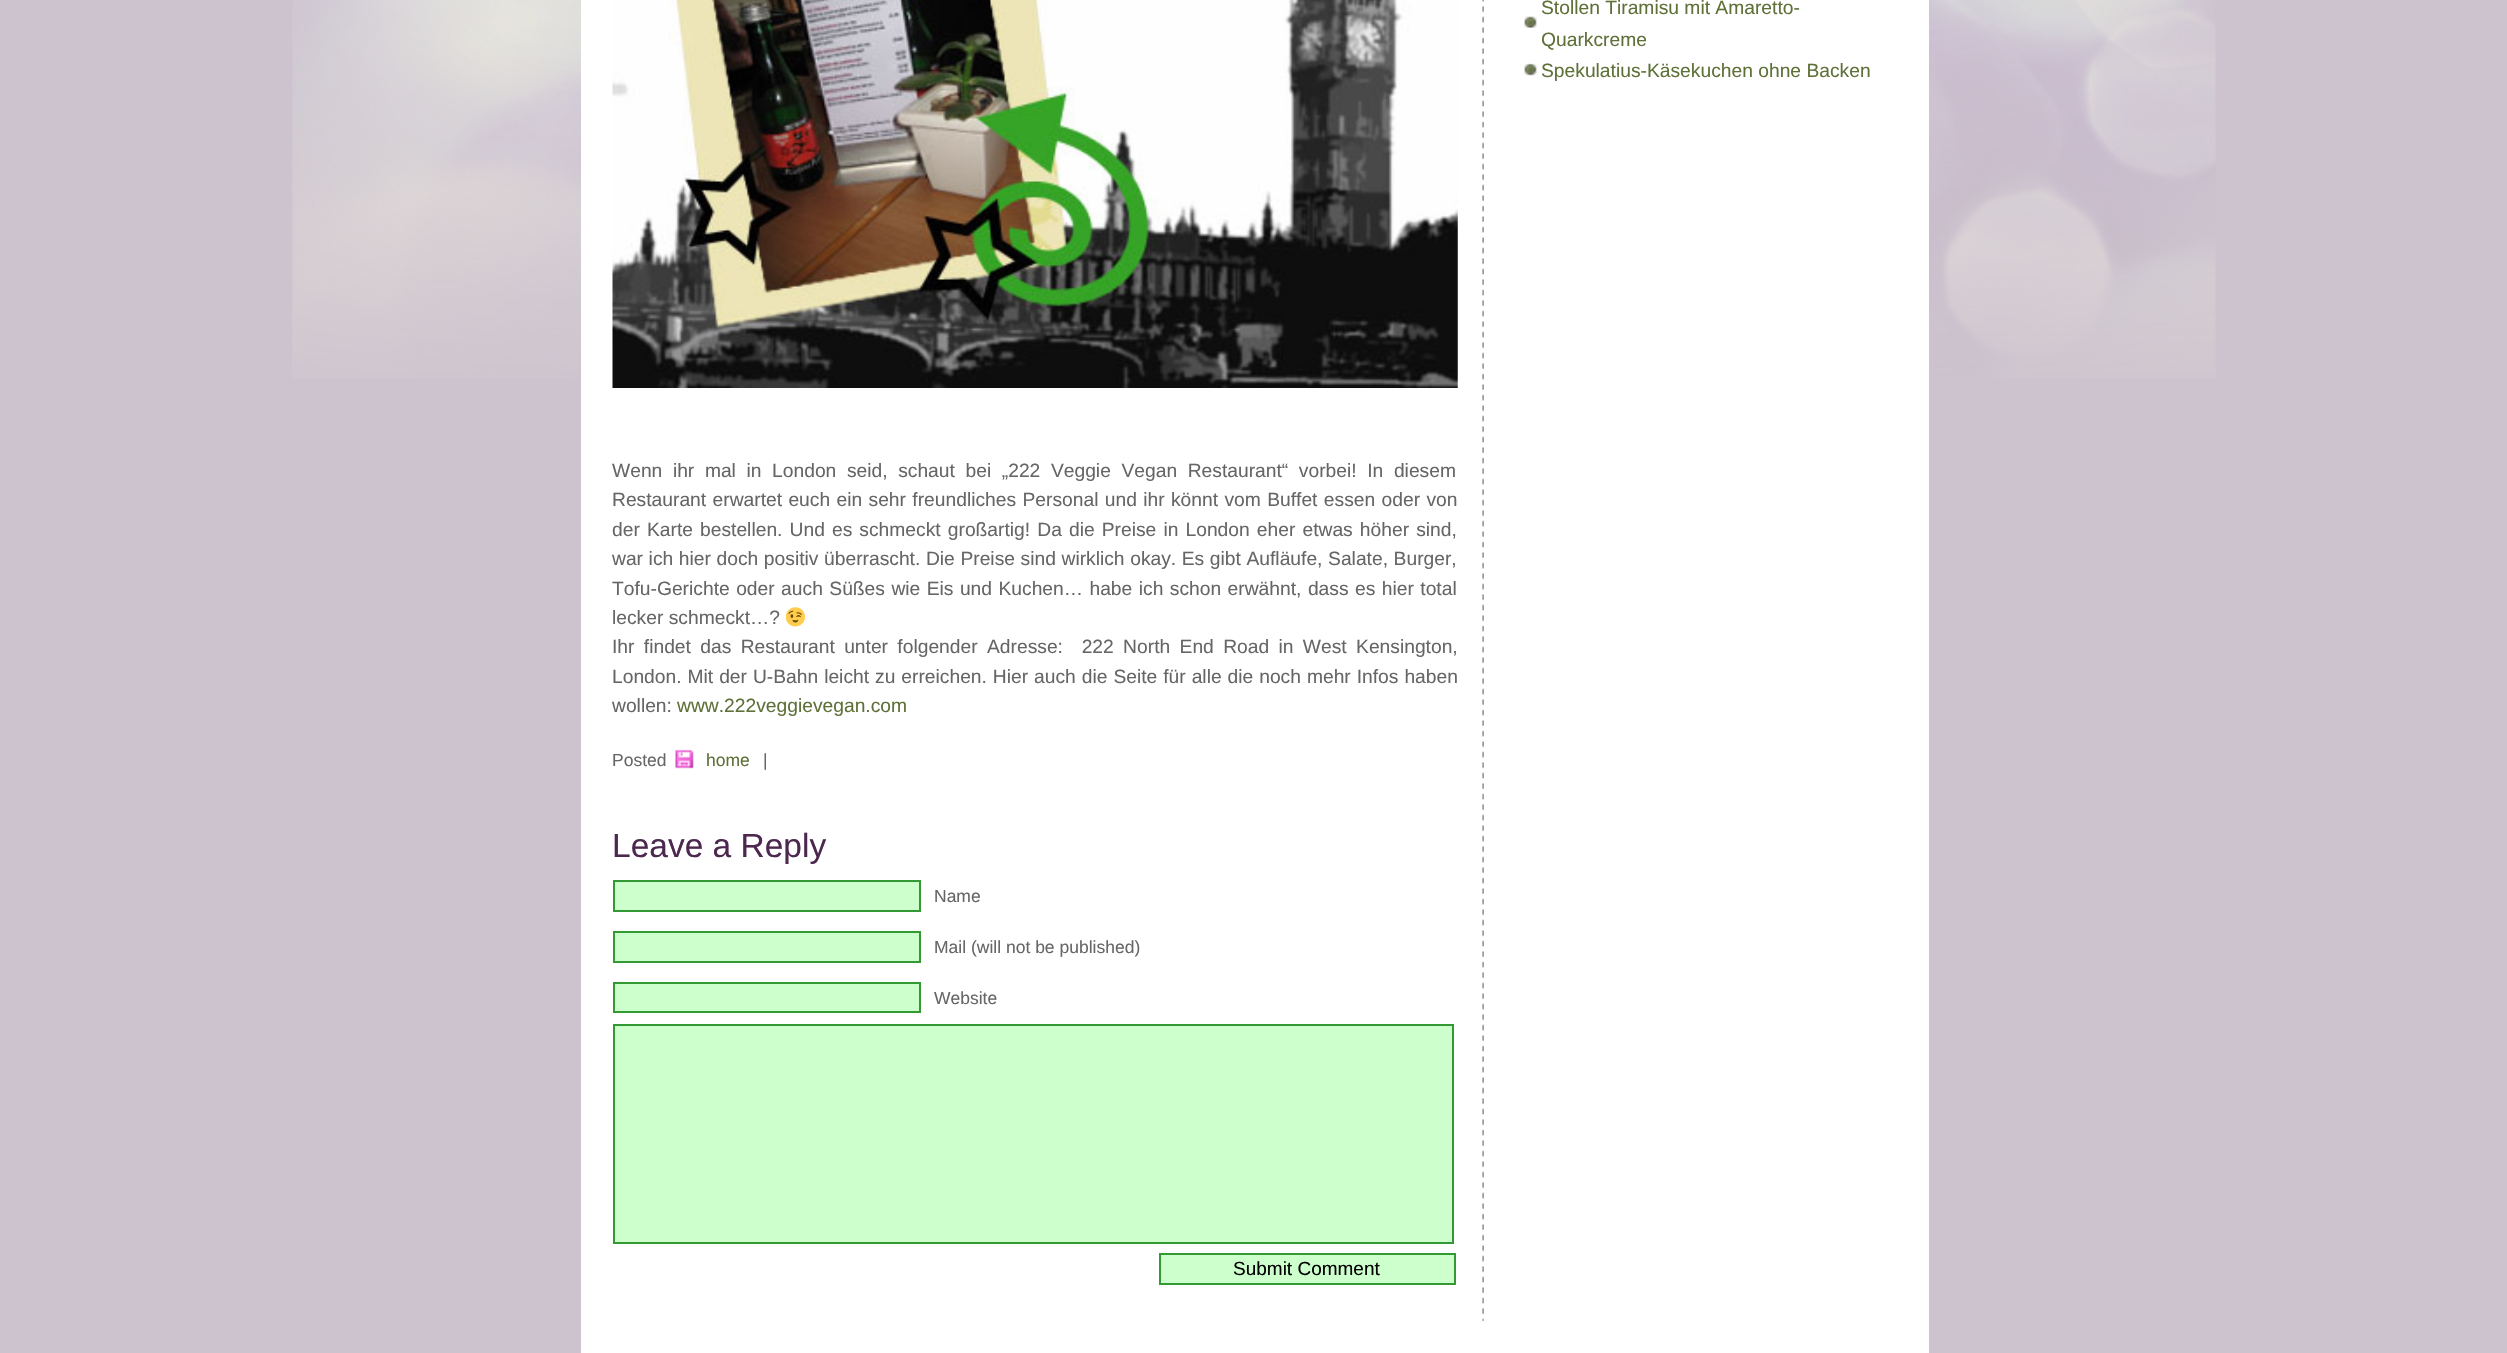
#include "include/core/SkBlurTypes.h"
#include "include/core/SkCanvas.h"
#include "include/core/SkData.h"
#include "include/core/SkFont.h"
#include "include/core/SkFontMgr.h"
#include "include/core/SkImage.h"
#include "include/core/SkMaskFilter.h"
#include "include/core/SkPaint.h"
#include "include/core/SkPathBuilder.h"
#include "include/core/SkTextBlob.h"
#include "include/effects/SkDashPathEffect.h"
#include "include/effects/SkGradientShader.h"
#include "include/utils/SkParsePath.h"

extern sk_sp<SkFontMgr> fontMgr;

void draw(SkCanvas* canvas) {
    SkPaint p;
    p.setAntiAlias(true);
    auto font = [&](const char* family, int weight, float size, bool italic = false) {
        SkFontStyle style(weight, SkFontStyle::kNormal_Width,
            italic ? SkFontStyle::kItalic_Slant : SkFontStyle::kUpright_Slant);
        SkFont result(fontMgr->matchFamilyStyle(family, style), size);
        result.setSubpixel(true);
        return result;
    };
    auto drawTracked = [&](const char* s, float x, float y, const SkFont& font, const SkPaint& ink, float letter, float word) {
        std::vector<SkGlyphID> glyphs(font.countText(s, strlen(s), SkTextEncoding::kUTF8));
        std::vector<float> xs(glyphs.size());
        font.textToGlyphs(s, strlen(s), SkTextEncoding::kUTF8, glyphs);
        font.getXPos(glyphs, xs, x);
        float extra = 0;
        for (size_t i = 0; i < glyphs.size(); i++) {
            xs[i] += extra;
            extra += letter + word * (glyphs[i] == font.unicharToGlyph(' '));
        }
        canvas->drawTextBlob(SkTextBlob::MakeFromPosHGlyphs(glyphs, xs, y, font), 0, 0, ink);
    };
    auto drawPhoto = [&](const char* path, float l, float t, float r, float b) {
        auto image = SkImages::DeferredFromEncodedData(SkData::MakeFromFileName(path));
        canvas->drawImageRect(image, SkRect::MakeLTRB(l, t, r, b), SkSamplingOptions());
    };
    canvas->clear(0xFFCDC3CE);
    drawPhoto("media/1.png", 292, 0, 2216, 378);
    p.setColor(0xFFFFFFFF);
    canvas->drawRect(SkRect::MakeLTRB(581, 0, 1929, 1353), p);
    drawPhoto("media/2.png", 1524, 16, 1537, 28);
    auto font1 = font("Liberation Sans", 400, 19.25f);
    p.setColor(0xFF5F7138);
    canvas->drawString("Stollen Tiramisu mit Amaretto-", 1541, 14, font1, p);
    canvas->drawString("Quarkcreme", 1541, 46, font1, p);
    drawPhoto("media/3.png", 1524, 63, 1537, 76);
    canvas->drawString("Spekulatius-Käsekuchen ohne Backen", 1541, 77, font1, p);
    drawPhoto("media/4.png", 1482, 0, 1484, 1321);
    drawPhoto("media/5.png", 612, 0, 1458, 388);
    p.setColor(0xFF666666);
    drawTracked("Wenn ihr mal in London seid, schaut bei „222 Veggie Vegan Restaurant“ vorbei! In diesem", 612, 477, font1, p, 0, 5.25f);
    drawTracked("Restaurant erwartet euch ein sehr freundliches Personal und ihr könnt vom Buffet essen oder von", 612, 506, font1, p, 0, 1);
    drawTracked("der Karte bestellen. Und es schmeckt großartig! Da die Preise in London eher etwas höher sind,", 612, 536, font1, p, 0, 1.75f);
    drawTracked("war ich hier doch positiv überrascht. Die Preise sind wirklich okay. Es gibt Aufläufe, Salate, Burger,", 612, 565, font1, p, 0, 0.25f);
    drawTracked("Tofu-Gerichte oder auch Süßes wie Eis und Kuchen… habe ich schon erwähnt, dass es hier total", 612, 595, font1, p, 0, 1.1f);
    canvas->drawString("lecker schmeckt…?", 612, 624, font1, p);
    drawPhoto("media/6.png", 786, 607, 805, 627);
    drawTracked("Ihr findet das Restaurant unter folgender Adresse:  222 North End Road in West Kensington,", 612, 653, font1, p, 0, 4);
    drawTracked("London. Mit der U-Bahn leicht zu erreichen. Hier auch die Seite für alle die noch mehr Infos haben", 612, 683, font1, p, 0, 0.6f);
    canvas->drawString("wollen:", 612, 712, font1, p);
    p.setColor(0xFF5F7138);
    canvas->drawString("www.222veggievegan.com", 677, 712, font1, p);
    auto font2 = font("Liberation Sans", 400, 17.5f);
    p.setColor(0xFF666666);
    canvas->drawString("Posted", 612, 766, font2, p);
    drawPhoto("media/7.png", 675, 749, 694, 769);
    p.setColor(0xFF5F7138);
    canvas->drawString("home", 706, 766, font2, p);
    p.setColor(0xFF666666);
    canvas->drawString("|", 763, 766, font2, p);
    auto font3 = font("Liberation Sans", 400, 33.5f);
    p.setColor(0xFF4C284F);
    canvas->drawString("Leave a Reply", 612, 857, font3, p);
    p.setColor(0xFFCCFFCC);
    canvas->drawRect(SkRect::MakeLTRB(614, 881, 920, 911), p);
    p.setStyle(SkPaint::kStroke_Style);
    p.setStrokeWidth(2);
    p.setColor(0xFF339933);
    canvas->drawRect(SkRect::MakeLTRB(614, 881, 920, 911), p);
    p.setStyle(SkPaint::kFill_Style);
    p.setColor(0xFF666666);
    canvas->drawString("Name", 934, 902, font2, p);
    p.setColor(0xFFCCFFCC);
    canvas->drawRect(SkRect::MakeLTRB(614, 932, 920, 962), p);
    p.setStyle(SkPaint::kStroke_Style);
    p.setColor(0xFF339933);
    canvas->drawRect(SkRect::MakeLTRB(614, 932, 920, 962), p);
    p.setStyle(SkPaint::kFill_Style);
    p.setColor(0xFF666666);
    canvas->drawString("Mail (will not be published)", 934, 953, font2, p);
    p.setColor(0xFFCCFFCC);
    canvas->drawRect(SkRect::MakeLTRB(614, 983, 920, 1012), p);
    p.setStyle(SkPaint::kStroke_Style);
    p.setColor(0xFF339933);
    canvas->drawRect(SkRect::MakeLTRB(614, 983, 920, 1012), p);
    p.setStyle(SkPaint::kFill_Style);
    p.setColor(0xFF666666);
    canvas->drawString("Website", 934, 1004, font2, p);
    p.setColor(0xFFCCFFCC);
    canvas->drawRect(SkRect::MakeLTRB(614, 1025, 1453, 1243), p);
    p.setStyle(SkPaint::kStroke_Style);
    p.setColor(0xFF339933);
    canvas->drawRect(SkRect::MakeLTRB(614, 1025, 1453, 1243), p);
    p.setStyle(SkPaint::kFill_Style);
    p.setColor(0xFFCCFFCC);
    canvas->drawRect(SkRect::MakeLTRB(1160, 1254, 1455, 1284), p);
    p.setStyle(SkPaint::kStroke_Style);
    p.setColor(0xFF339933);
    canvas->drawRect(SkRect::MakeLTRB(1160, 1254, 1455, 1284), p);
    auto font4 = font("Liberation Sans", 400, 19);
    p.setStyle(SkPaint::kFill_Style);
    p.setColor(0xFF000000);
    canvas->drawString("Submit Comment", 1233, 1275, font4, p);
}
